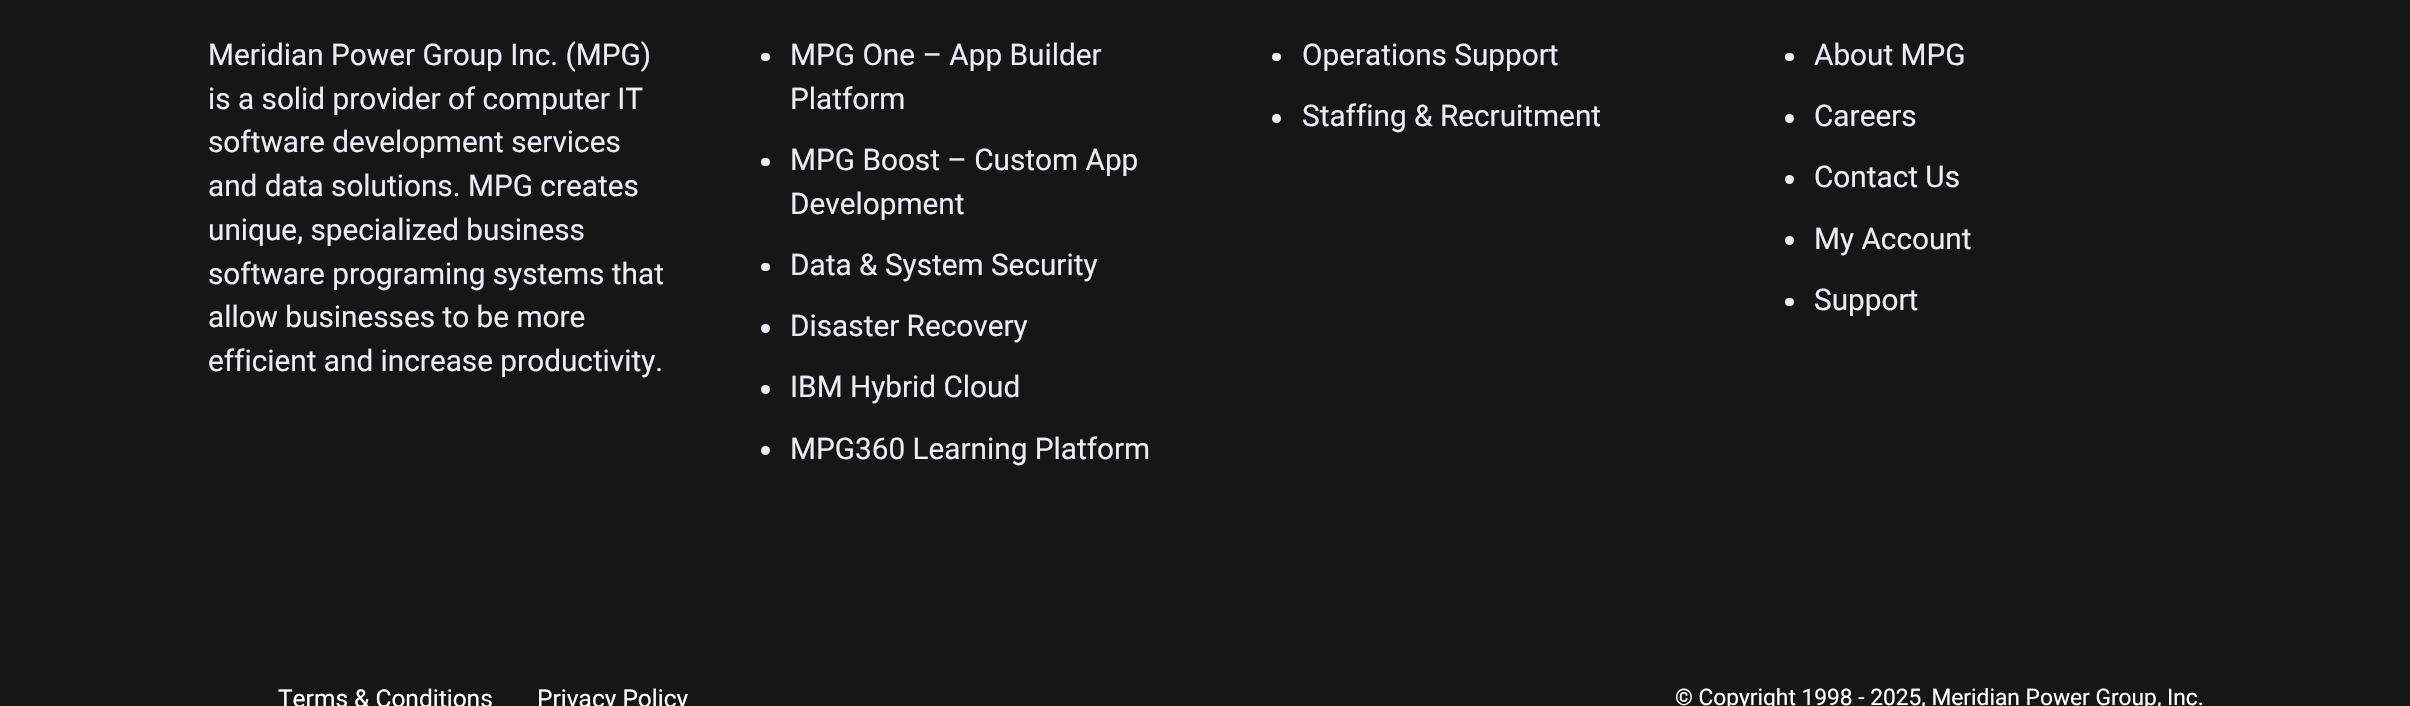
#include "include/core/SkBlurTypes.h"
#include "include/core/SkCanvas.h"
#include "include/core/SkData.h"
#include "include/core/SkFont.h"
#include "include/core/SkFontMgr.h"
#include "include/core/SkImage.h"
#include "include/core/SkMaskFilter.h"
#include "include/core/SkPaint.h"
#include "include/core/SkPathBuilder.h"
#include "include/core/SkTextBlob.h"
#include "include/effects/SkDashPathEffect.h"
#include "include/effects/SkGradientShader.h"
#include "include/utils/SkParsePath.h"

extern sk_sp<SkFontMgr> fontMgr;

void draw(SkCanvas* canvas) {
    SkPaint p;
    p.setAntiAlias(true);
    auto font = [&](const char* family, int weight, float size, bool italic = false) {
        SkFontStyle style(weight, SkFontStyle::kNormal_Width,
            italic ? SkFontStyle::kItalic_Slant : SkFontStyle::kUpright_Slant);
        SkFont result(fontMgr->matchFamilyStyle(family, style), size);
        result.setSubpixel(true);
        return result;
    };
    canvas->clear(0xFF161616);
    auto font1 = font("Roboto", 400, 29.75f);
    p.setColor(0xFFEAEEF3);
    {
        const struct { const char* s; float x, y; } items[] = {
            {"Meridian Power Group Inc. (MPG)", 208, 65},
            {"is a solid provider of computer IT", 208, 109},
            {"software development services", 208, 152},
            {"and data solutions. MPG creates", 208, 196},
            {"unique, specialized business", 208, 240},
            {"software programing systems that", 208, 284},
            {"allow businesses to be more", 208, 327},
            {"efficient and increase productivity.", 208, 371},
        };
        for (auto [s, x, y] : items) {
            canvas->drawString(s, x, y, font1, p);
        }
    }
    canvas->drawRoundRect(SkRect::MakeLTRB(761, 53, 770, 61), 4, 4, p);
    canvas->drawString("MPG One – App Builder", 790, 65, font1, p);
    canvas->drawString("Platform", 790, 109, font1, p);
    canvas->drawRoundRect(SkRect::MakeLTRB(761, 158, 770, 166), 4, 4, p);
    canvas->drawString("MPG Boost – Custom App", 790, 170, font1, p);
    canvas->drawString("Development", 790, 214, font1, p);
    canvas->drawRoundRect(SkRect::MakeLTRB(761, 263, 770, 271), 4, 4, p);
    canvas->drawString("Data & System Security", 790, 275, font1, p);
    canvas->drawCircle(765.5f, 328.5f, 4.5f, p);
    canvas->drawString("Disaster Recovery", 790, 336, font1, p);
    canvas->drawCircle(765.5f, 389.5f, 4.5f, p);
    canvas->drawString("IBM Hybrid Cloud", 790, 397, font1, p);
    canvas->drawCircle(765.5f, 450.5f, 4.5f, p);
    canvas->drawString("MPG360 Learning Platform", 790, 459, font1, p);
    canvas->drawRoundRect(SkRect::MakeLTRB(1272, 53, 1281, 61), 4, 4, p);
    canvas->drawString("Operations Support", 1302, 65, font1, p);
    canvas->drawCircle(1276.5f, 118.5f, 4.5f, p);
    canvas->drawString("Staffing & Recruitment", 1302, 126, font1, p);
    canvas->drawRoundRect(SkRect::MakeLTRB(1785, 53, 1794, 61), 4, 4, p);
    canvas->drawString("About MPG", 1814, 65, font1, p);
    canvas->drawCircle(1789.5f, 118.5f, 4.5f, p);
    canvas->drawString("Careers", 1814, 126, font1, p);
    canvas->drawCircle(1789.5f, 179.5f, 4.5f, p);
    canvas->drawString("Contact Us", 1814, 187, font1, p);
    canvas->drawCircle(1789.5f, 240.5f, 4.5f, p);
    canvas->drawString("My Account", 1814, 249, font1, p);
    canvas->drawRoundRect(SkRect::MakeLTRB(1785, 298, 1794, 306), 4, 4, p);
    canvas->drawString("Support", 1814, 310, font1, p);
    auto font2 = font("Roboto", 400, 24.5f);
    p.setColor(0xFFFFFFFF);
    canvas->drawString("Terms & Conditions", 278, 707, font2, p);
    canvas->drawString("Privacy Policy", 537, 707, font2, p);
    auto font3 = font("Roboto", 400, 22.75f);
    canvas->drawString("© Copyright 1998 - 2025, Meridian Power Group, Inc.", 1675, 705, font3, p);
}
